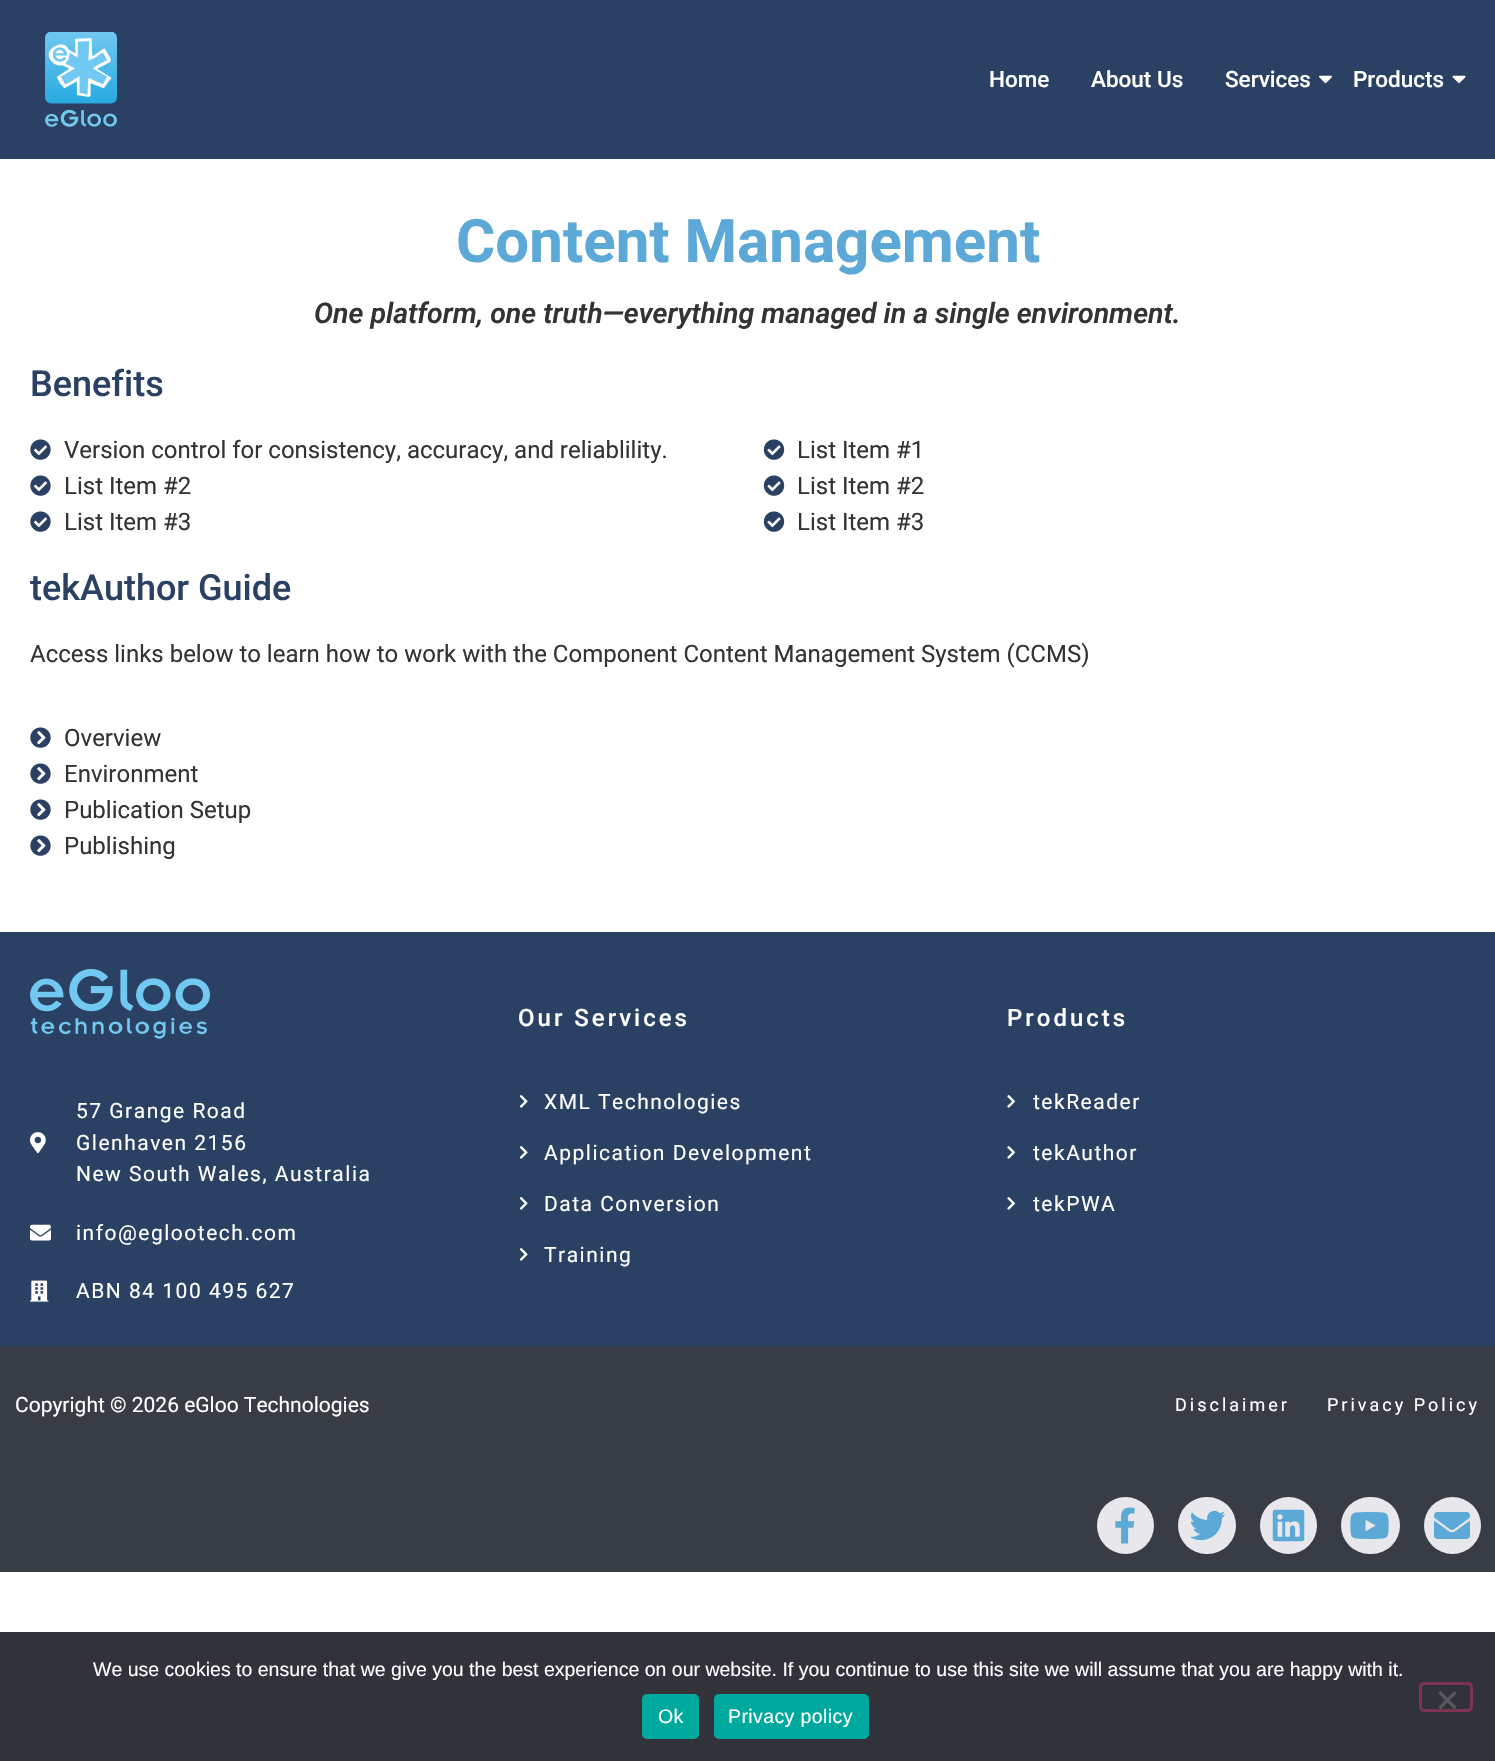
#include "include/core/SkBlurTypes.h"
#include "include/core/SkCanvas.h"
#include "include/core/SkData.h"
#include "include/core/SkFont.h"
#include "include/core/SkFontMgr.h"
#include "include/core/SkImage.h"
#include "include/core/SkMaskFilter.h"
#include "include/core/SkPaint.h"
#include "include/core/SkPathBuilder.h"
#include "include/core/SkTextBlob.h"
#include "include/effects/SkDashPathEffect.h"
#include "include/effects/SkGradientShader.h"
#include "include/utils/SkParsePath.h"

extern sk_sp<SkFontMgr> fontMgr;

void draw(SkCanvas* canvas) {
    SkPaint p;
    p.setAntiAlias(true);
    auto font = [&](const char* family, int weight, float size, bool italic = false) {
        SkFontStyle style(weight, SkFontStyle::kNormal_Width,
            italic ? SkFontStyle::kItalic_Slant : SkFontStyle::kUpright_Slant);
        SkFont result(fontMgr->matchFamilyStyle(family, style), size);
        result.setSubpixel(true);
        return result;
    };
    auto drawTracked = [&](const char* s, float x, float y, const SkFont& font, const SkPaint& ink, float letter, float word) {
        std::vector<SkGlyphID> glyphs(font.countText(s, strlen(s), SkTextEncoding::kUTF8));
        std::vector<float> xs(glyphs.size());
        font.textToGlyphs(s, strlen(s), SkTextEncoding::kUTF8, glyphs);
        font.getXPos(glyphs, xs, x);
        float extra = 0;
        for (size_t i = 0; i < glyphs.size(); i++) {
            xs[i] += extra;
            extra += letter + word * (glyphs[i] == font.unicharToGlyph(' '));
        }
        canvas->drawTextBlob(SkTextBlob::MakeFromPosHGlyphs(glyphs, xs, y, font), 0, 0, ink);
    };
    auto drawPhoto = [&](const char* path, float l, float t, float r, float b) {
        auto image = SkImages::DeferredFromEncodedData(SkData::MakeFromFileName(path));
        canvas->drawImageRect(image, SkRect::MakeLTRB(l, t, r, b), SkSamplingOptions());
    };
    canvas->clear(0xFFFFFFFF);
    p.setColor(0xFF2B4163);
    canvas->drawRect(SkRect::MakeLTRB(0, 0, 1495, 159), p);
    drawPhoto("media/1.png", 45, 32, 117, 127);
    auto font1 = font("Roboto", 500, 22.5f);
    p.setColor(0xFFFFFFFF);
    {
        const struct { const char* s; float x, y; } items[] = {
            {"Home", 989, 87},
            {"About Us", 1091, 87},
            {"Services", 1225, 87},
        };
        for (auto [s, x, y] : items) {
            canvas->drawString(s, x, y, font1, p);
        }
    }
    drawPhoto("media/2.png", 1319, 75, 1332, 84);
    canvas->drawString("Products", 1353, 87, font1, p);
    drawPhoto("media/3.png", 1452, 75, 1466, 84);
    auto font2 = font("Heebo", 700, 60);
    p.setColor(0xFF5CA9D7);
    canvas->drawString("Content Management", 456, 262, font2, p);
    auto font3 = font("Roboto", 600, 28.5f, true);
    p.setColor(0xFF333333);
    canvas->drawString("One platform, one truth—everything managed in a single environment.", 314, 323, font3, p);
    auto font4 = font("Roboto", 500, 36);
    p.setColor(0xFF2B4163);
    canvas->drawString("Benefits", 30, 396, font4, p);
    drawPhoto("media/4.png", 30, 439, 51, 460);
    auto font5 = font("Roboto", 400, 24);
    p.setColor(0xFF333333);
    canvas->drawString("Version control for consistency, accuracy, and reliablility.", 64, 458, font5, p);
    drawPhoto("media/4.png", 30, 475, 51, 496);
    canvas->drawString("List Item #2", 64, 494, font5, p);
    drawPhoto("media/4.png", 30, 511, 51, 532);
    canvas->drawString("List Item #3", 64, 530, font5, p);
    drawPhoto("media/5.png", 763, 439, 785, 460);
    canvas->drawString("List Item #1", 797, 458, font5, p);
    drawPhoto("media/5.png", 763, 475, 785, 496);
    canvas->drawString("List Item #2", 797, 494, font5, p);
    drawPhoto("media/5.png", 763, 511, 785, 532);
    canvas->drawString("List Item #3", 797, 530, font5, p);
    p.setColor(0xFF2B4163);
    canvas->drawString("tekAuthor Guide", 30, 600, font4, p);
    p.setColor(0xFF333333);
    canvas->drawString("Access links below to learn how to work with the Component Content Management System (CCMS)", 30, 662, font5, p);
    drawPhoto("media/6.png", 30, 727, 51, 748);
    canvas->drawString("Overview", 64, 746, font5, p);
    drawPhoto("media/6.png", 30, 763, 51, 784);
    canvas->drawString("Environment", 64, 782, font5, p);
    drawPhoto("media/6.png", 30, 799, 51, 820);
    canvas->drawString("Publication Setup", 64, 818, font5, p);
    drawPhoto("media/6.png", 30, 835, 51, 856);
    canvas->drawString("Publishing", 64, 854, font5, p);
    p.setColor(0xFF2B4163);
    canvas->drawRect(SkRect::MakeLTRB(0, 932, 1495, 1346), p);
    drawPhoto("media/7.png", 30, 969, 210, 1039);
    drawPhoto("media/8.png", 30, 1132, 46, 1154);
    auto font6 = font("Roboto", 400, 21);
    p.setColor(0xFFFFFFFF);
    {
        const struct { const char* s; float x, y; } items[] = {
            {"57 Grange Road", 76, 1118},
            {"Glenhaven 2156", 76, 1150},
            {"New South Wales, Australia", 76, 1181},
        };
        for (auto [s, x, y] : items) {
            drawTracked(s, x, y, font6, p, 1.5f, 0);
        }
    }
    drawPhoto("media/9.png", 30, 1224, 51, 1241);
    drawTracked("info@eglootech.com", 76, 1240, font6, p, 1.5f, 0);
    drawPhoto("media/10.png", 30, 1280, 49, 1302);
    drawTracked("ABN 84 100 495 627", 76, 1298, font6, p, 1.5f, 0);
    auto font7 = font("Roboto", 500, 24);
    drawTracked("Our Services", 518, 1026, font7, p, 3, 0);
    drawPhoto("media/11.png", 519, 1095, 528, 1108);
    drawTracked("XML Technologies", 544, 1109, font6, p, 1.5f, 0);
    drawPhoto("media/11.png", 519, 1146, 528, 1159);
    drawTracked("Application Development", 544, 1160, font6, p, 1.5f, 0);
    drawPhoto("media/11.png", 519, 1197, 528, 1210);
    drawTracked("Data Conversion", 544, 1211, font6, p, 1.5f, 0);
    drawPhoto("media/11.png", 519, 1248, 528, 1261);
    drawTracked("Training", 544, 1262, font6, p, 1.5f, 0);
    drawTracked("Products", 1007, 1026, font7, p, 3, 0);
    drawPhoto("media/12.png", 1007, 1095, 1015, 1108);
    drawTracked("tekReader", 1033, 1109, font6, p, 1.5f, 0);
    drawPhoto("media/12.png", 1007, 1146, 1015, 1159);
    drawTracked("tekAuthor", 1033, 1160, font6, p, 1.5f, 0);
    drawPhoto("media/12.png", 1007, 1197, 1015, 1210);
    drawTracked("tekPWA", 1033, 1211, font6, p, 1.5f, 0);
    p.setColor(0xFF383D45);
    canvas->drawRect(SkRect::MakeLTRB(0, 1346, 1495, 1572), p);
    p.setColor(0xFFFFFFFF);
    canvas->drawString("Copyright © 2026 eGloo Technologies", 15, 1412, font6, p);
    auto font8 = font("Roboto", 400, 18);
    drawTracked("Disclaimer", 1175, 1411, font8, p, 3, 0);
    drawTracked("Privacy Policy", 1327, 1411, font8, p, 3, 0);
    p.setColor(0xFFE8E8EC);
    canvas->drawCircle(1125.5f, 1525.5f, 28.5f, p);
    drawPhoto("media/13.png", 1115, 1507, 1135, 1544);
    canvas->drawRoundRect(SkRect::MakeLTRB(1178, 1497, 1236, 1554), 28.5f, 28.5f, p);
    drawPhoto("media/14.png", 1189, 1510, 1226, 1541);
    canvas->drawCircle(1288.5f, 1525.5f, 28.5f, p);
    drawPhoto("media/15.png", 1272, 1509, 1305, 1542);
    canvas->drawRoundRect(SkRect::MakeLTRB(1341, 1497, 1400, 1554), 28.5f, 28.5f, p);
    drawPhoto("media/16.png", 1350, 1512, 1389, 1539);
    canvas->drawCircle(1452.5f, 1525.5f, 28.5f, p);
    drawPhoto("media/17.png", 1434, 1512, 1470, 1539);
    p.setColor(0xFF32323A);
    canvas->drawRect(SkRect::MakeLTRB(0, 1632, 1495, 1761), p);
    auto font9 = font("Liberation Sans", 400, 19.5f);
    p.setColor(0xFFFFFFFF);
    canvas->drawString("We use cookies to ensure that we give you the best experience on our website. If you continue to use this site we will assume that you are happy with it.", 93, 1676, font9, p);
    p.setStyle(SkPaint::kStroke_Style);
    p.setStrokeWidth(3);
    p.setColor(0xFF7F3350);
    canvas->drawRoundRect(SkRect::MakeLTRB(1420.5f, 1683.5f, 1471.5f, 1710.5f), 3.5f, 3.5f, p);
    p.setStyle(SkPaint::kFill_Style);
    p.setColor(0xFF59595D);
    canvas->drawPath(SkPathBuilder().moveTo(1454.5f, 1691).lineTo(1456.5f, 1693.5f).lineTo(1440.5f, 1709.5f).lineTo(1438.5f, 1707).close().detach(), p);
    canvas->drawPath(SkPathBuilder().moveTo(1438.5f, 1693.5f).lineTo(1440.5f, 1691).lineTo(1456.5f, 1707).lineTo(1454.5f, 1709.5f).close().detach(), p);
    p.setColor(0xFF00A99D);
    canvas->drawRoundRect(SkRect::MakeLTRB(642, 1694, 699, 1739), 5, 5, p);
    p.setColor(0xFFFFFFFF);
    drawTracked("Ok", 658, 1723, font9, p, 0.4f, 0);
    p.setColor(0xFF00A99D);
    canvas->drawRoundRect(SkRect::MakeLTRB(714, 1694, 869, 1739), 5, 5, p);
    p.setColor(0xFFFFFFFF);
    drawTracked("Privacy policy", 728, 1723, font9, p, 0.4f, 0);
}
